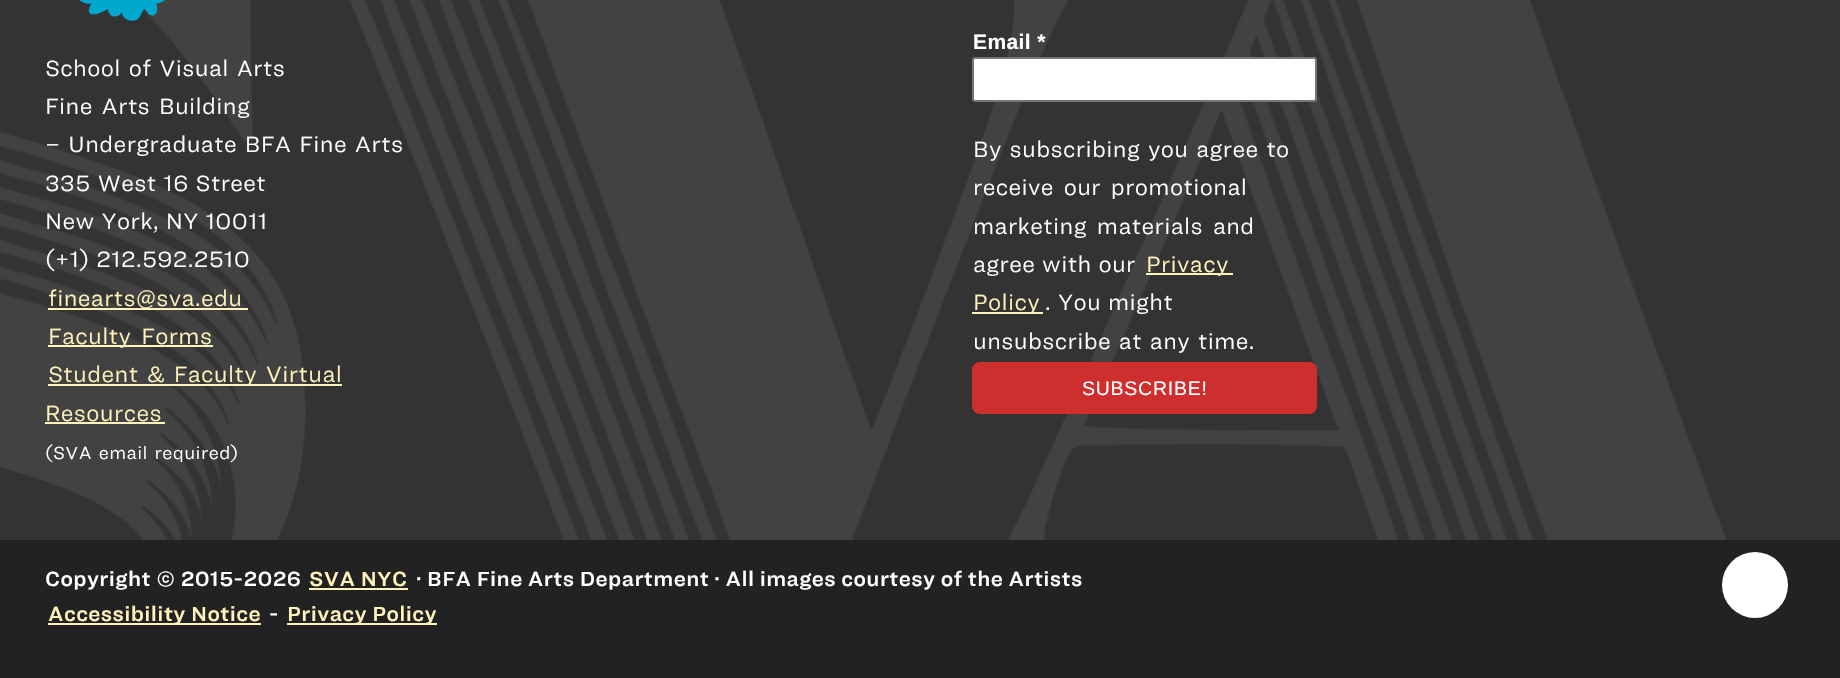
#include "include/core/SkBlurTypes.h"
#include "include/core/SkCanvas.h"
#include "include/core/SkData.h"
#include "include/core/SkFont.h"
#include "include/core/SkFontMgr.h"
#include "include/core/SkImage.h"
#include "include/core/SkMaskFilter.h"
#include "include/core/SkPaint.h"
#include "include/core/SkPathBuilder.h"
#include "include/core/SkTextBlob.h"
#include "include/effects/SkDashPathEffect.h"
#include "include/effects/SkGradientShader.h"
#include "include/utils/SkParsePath.h"

extern sk_sp<SkFontMgr> fontMgr;

void draw(SkCanvas* canvas) {
    SkPaint p;
    p.setAntiAlias(true);
    auto font = [&](const char* family, int weight, float size, bool italic = false) {
        SkFontStyle style(weight, SkFontStyle::kNormal_Width,
            italic ? SkFontStyle::kItalic_Slant : SkFontStyle::kUpright_Slant);
        SkFont result(fontMgr->matchFamilyStyle(family, style), size);
        result.setSubpixel(true);
        return result;
    };
    auto drawTracked = [&](const char* s, float x, float y, const SkFont& font, const SkPaint& ink, float letter, float word) {
        std::vector<SkGlyphID> glyphs(font.countText(s, strlen(s), SkTextEncoding::kUTF8));
        std::vector<float> xs(glyphs.size());
        font.textToGlyphs(s, strlen(s), SkTextEncoding::kUTF8, glyphs);
        font.getXPos(glyphs, xs, x);
        float extra = 0;
        for (size_t i = 0; i < glyphs.size(); i++) {
            xs[i] += extra;
            extra += letter + word * (glyphs[i] == font.unicharToGlyph(' '));
        }
        canvas->drawTextBlob(SkTextBlob::MakeFromPosHGlyphs(glyphs, xs, y, font), 0, 0, ink);
    };
    auto drawPhoto = [&](const char* path, float l, float t, float r, float b) {
        auto image = SkImages::DeferredFromEncodedData(SkData::MakeFromFileName(path));
        canvas->drawImageRect(image, SkRect::MakeLTRB(l, t, r, b), SkSamplingOptions());
    };
    canvas->clear(0xFF333333);
    drawPhoto("media/1.png", 0, 0, 1726, 540);
    drawPhoto("media/2.png", 79, 0, 165, 21);
    auto font1 = font("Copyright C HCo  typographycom", 300, 21);
    p.setColor(0xFFFFFFFF);
    drawTracked("School of Visual Arts", 45, 76, font1, p, 0.38f, 2);
    drawTracked("Fine Arts Building", 45, 114, font1, p, 0.38f, 3);
    drawTracked("– Undergraduate BFA Fine Arts", 45, 152, font1, p, 0.38f, 2);
    {
        const struct { const char* s; float x, y; } items[] = {
            {"335 West 16 Street", 45, 191},
            {"New York, NY 10011", 45, 229},
            {"(+1) 212.592.2510", 45, 267},
        };
        for (auto [s, x, y] : items) {
            drawTracked(s, x, y, font1, p, 0.38f, 1);
        }
    }
    p.setColor(0xFFFFF2BB);
    canvas->drawRect(SkRect::MakeLTRB(48, 308, 248, 310), p);
    drawTracked("finearts@sva.edu", 48, 306, font1, p, 0.38f, 0);
    canvas->drawRect(SkRect::MakeLTRB(48, 345, 213, 347), p);
    drawTracked("Faculty Forms", 48, 344, font1, p, 0.38f, 4);
    canvas->drawRect(SkRect::MakeLTRB(48, 384, 342, 386), p);
    drawTracked("Student & Faculty Virtual", 48, 382, font1, p, 0.38f, 3);
    drawTracked("Resources", 45, 421, font1, p, 0.38f, 0);
    canvas->drawRect(SkRect::MakeLTRB(45, 422, 165, 424), p);
    auto font2 = font("Copyright C HCo  typographycom", 300, 16.75f);
    p.setColor(0xFFFFFFFF);
    drawTracked("(SVA email required)", 45, 459, font2, p, 0.38f, 2);
    auto font3 = font("Liberation Sans", 700, 21);
    drawTracked("Email *", 973, 49, font3, p, 0.38f, 0);
    canvas->drawRoundRect(SkRect::MakeLTRB(973, 58, 1316, 101), 2, 2, p);
    p.setStyle(SkPaint::kStroke_Style);
    p.setStrokeWidth(2);
    p.setColor(0xFF767676);
    canvas->drawRoundRect(SkRect::MakeLTRB(973, 58, 1316, 101), 2, 2, p);
    p.setStyle(SkPaint::kFill_Style);
    p.setColor(0xFFFFFFFF);
    drawTracked("By subscribing you agree to", 973, 157, font1, p, 0.38f, 2);
    drawTracked("receive our promotional", 973, 195, font1, p, 0.38f, 4);
    drawTracked("marketing materials and", 973, 234, font1, p, 0.38f, 4);
    drawTracked("agree with our", 973, 272, font1, p, 0.38f, 1);
    p.setColor(0xFFFFF2BB);
    canvas->drawRect(SkRect::MakeLTRB(1146, 273, 1233, 275), p);
    drawTracked("Privacy", 1146, 272, font1, p, 0.38f, 0);
    canvas->drawRect(SkRect::MakeLTRB(972, 312, 1043, 314), p);
    drawTracked("Policy", 973, 310, font1, p, 0.38f, 0);
    p.setColor(0xFFFFFFFF);
    drawTracked(". You might", 1045, 310, font1, p, 0.38f, 1);
    drawTracked("unsubscribe at any time.", 973, 349, font1, p, 0.38f, 2);
    p.setColor(0xFFCF2E2E);
    canvas->drawRoundRect(SkRect::MakeLTRB(972, 362, 1317, 414), 8, 8, p);
    auto font4 = font("Liberation Sans", 400, 19.5f);
    p.setColor(0xFFFFFFFF);
    drawTracked("SUBSCRIBE!", 1082, 395, font4, p, 0.75f, 0);
    p.setColor(0xFF222222);
    canvas->drawRect(SkRect::MakeLTRB(0, 540, 1840, 678), p);
    auto font5 = font("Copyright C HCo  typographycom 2", 300, 19.5f);
    p.setColor(0xFFFFFFFF);
    drawTracked("Copyright © 2015-2026", 45, 586, font5, p, 0.38f, 0);
    p.setColor(0xFFFFF2BB);
    drawTracked("SVA NYC", 309, 586, font5, p, 0.38f, 0);
    canvas->drawRect(SkRect::MakeLTRB(309, 588, 408, 590), p);
    p.setColor(0xFFFFFFFF);
    drawTracked("· BFA Fine Arts Department · All images courtesy of the Artists", 416, 586, font5, p, 0.38f, 0);
    p.setColor(0xFFFFF2BB);
    canvas->drawRect(SkRect::MakeLTRB(48, 623, 261, 625), p);
    drawTracked("Accessibility Notice", 48, 621, font5, p, 0.38f, 0);
    p.setColor(0xFFFFFFFF);
    drawTracked("-", 269, 621, font5, p, 0.38f, 0);
    p.setColor(0xFFFFF2BB);
    canvas->drawRect(SkRect::MakeLTRB(287, 623, 437, 625), p);
    drawTracked("Privacy Policy", 287, 621, font5, p, 0.38f, 0);
    p.setColor(0xFFFFFFFF);
    canvas->drawCircle(1755, 585, 33, p);
}
